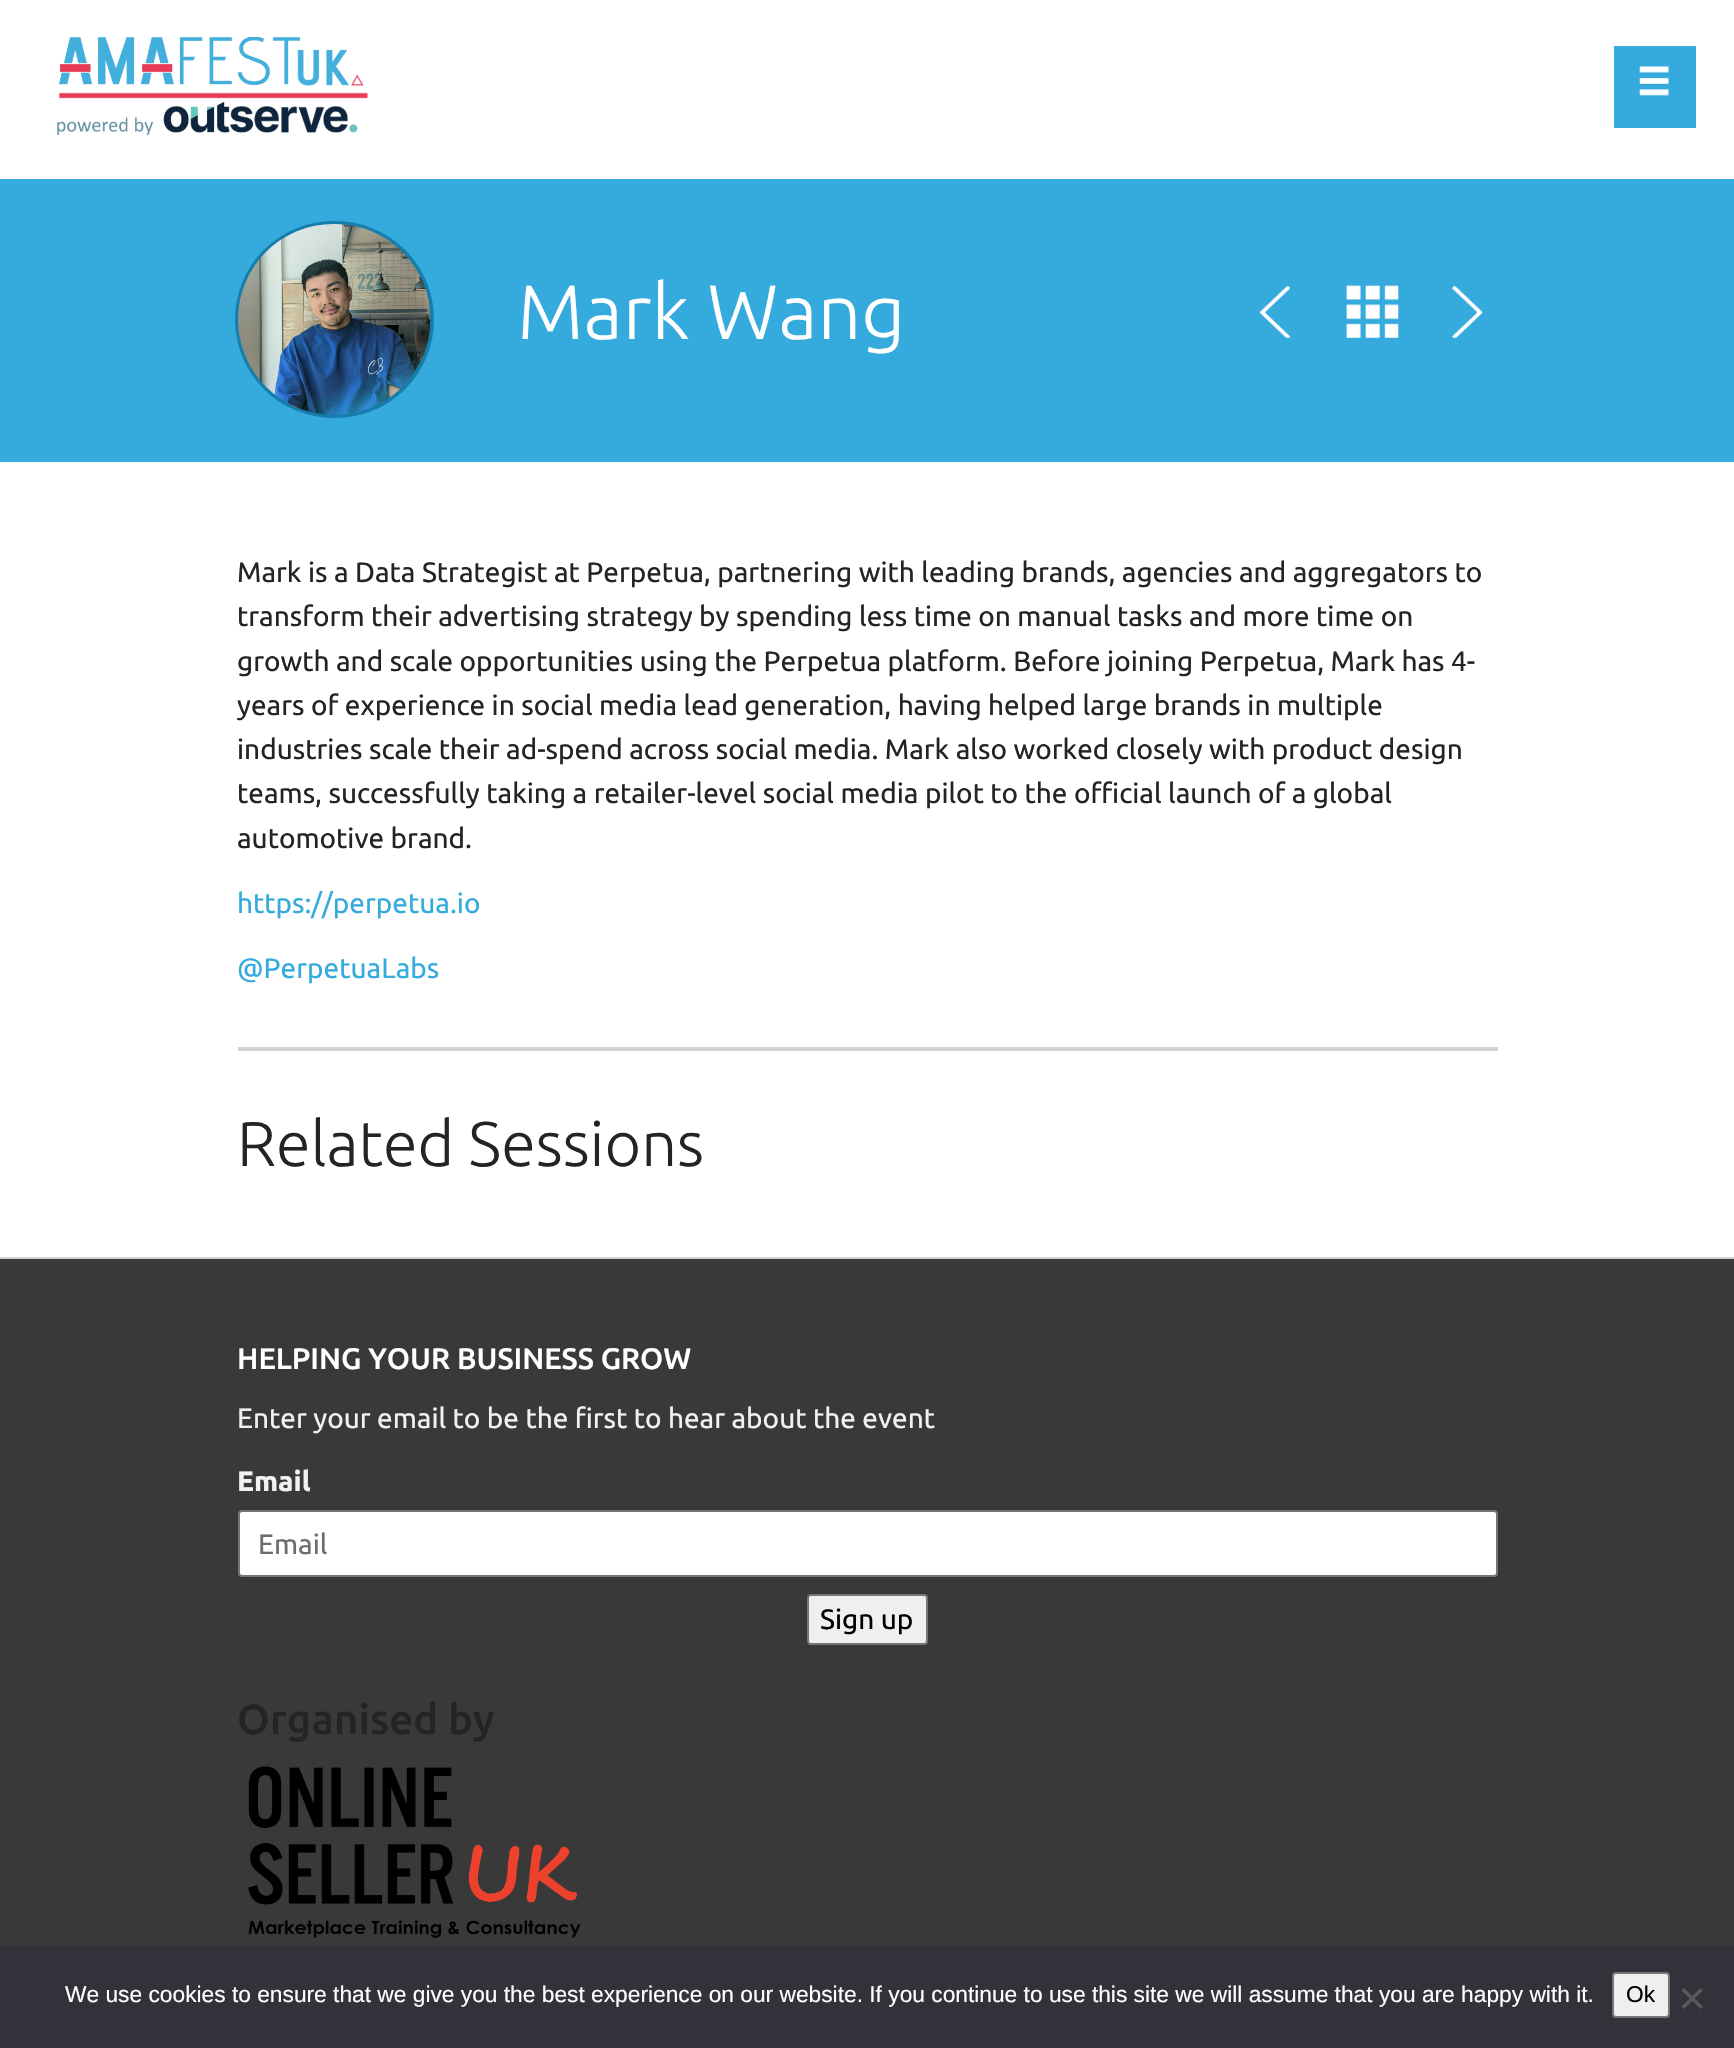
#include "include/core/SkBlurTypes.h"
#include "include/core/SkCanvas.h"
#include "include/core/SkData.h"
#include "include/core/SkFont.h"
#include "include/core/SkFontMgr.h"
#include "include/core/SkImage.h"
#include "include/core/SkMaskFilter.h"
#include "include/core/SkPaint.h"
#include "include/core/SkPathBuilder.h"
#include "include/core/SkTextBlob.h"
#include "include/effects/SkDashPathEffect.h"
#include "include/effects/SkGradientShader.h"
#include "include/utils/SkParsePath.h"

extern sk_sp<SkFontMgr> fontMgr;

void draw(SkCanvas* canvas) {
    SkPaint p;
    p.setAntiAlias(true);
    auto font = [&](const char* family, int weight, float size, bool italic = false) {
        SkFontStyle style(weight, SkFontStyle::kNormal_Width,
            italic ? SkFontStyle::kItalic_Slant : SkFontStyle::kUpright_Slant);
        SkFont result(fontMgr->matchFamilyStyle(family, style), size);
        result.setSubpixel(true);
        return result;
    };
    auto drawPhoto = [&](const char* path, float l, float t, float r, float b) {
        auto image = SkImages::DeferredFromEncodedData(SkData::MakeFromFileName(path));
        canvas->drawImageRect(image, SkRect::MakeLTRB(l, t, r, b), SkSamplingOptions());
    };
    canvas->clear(0xFFFFFFFF);
    drawPhoto("media/1.png", 57, 37, 368, 136);
    p.setColor(0xFF35AADC);
    canvas->drawRect(SkRect::MakeLTRB(1614, 46, 1696, 128), p);
    drawPhoto("media/2.png", 1639, 66, 1669, 96);
    canvas->drawRect(SkRect::MakeLTRB(0, 179, 1734, 462), p);
    p.setStyle(SkPaint::kStroke_Style);
    p.setStrokeWidth(4);
    p.setColor(0xFF157EAB);
    canvas->drawRoundRect(SkRect::MakeLTRB(237, 223, 432, 416), 96.5f, 96.5f, p);
    drawPhoto("media/3.png", 238, 224, 431, 415);
    auto font1 = font("Ubuntu", 300, 77);
    p.setStyle(SkPaint::kFill_Style);
    p.setColor(0xFFFFFFFF);
    canvas->drawString("Mark Wang", 517, 339, font1, p);
    drawPhoto("media/4.png", 1260, 286, 1290, 338);
    drawPhoto("media/5.png", 1346, 285, 1399, 338);
    drawPhoto("media/6.png", 1452, 286, 1483, 338);
    auto font2 = font("Ubuntu", 400, 28);
    p.setColor(0xFF242424);
    {
        const struct { const char* s; float x, y; } items[] = {
            {"Mark is a Data Strategist at Perpetua, partnering with leading brands, agencies and aggregators to", 237, 582},
            {"transform their advertising strategy by spending less time on manual tasks and more time on", 237, 626},
            {"growth and scale opportunities using the Perpetua platform. Before joining Perpetua, Mark has 4-", 237, 671},
            {"years of experience in social media lead generation, having helped large brands in multiple", 237, 715},
            {"industries scale their ad-spend across social media. Mark also worked closely with product design", 237, 759},
            {"teams, successfully taking a retailer-level social media pilot to the official launch of a global", 237, 803},
            {"automotive brand.", 237, 848},
        };
        for (auto [s, x, y] : items) {
            canvas->drawString(s, x, y, font2, p);
        }
    }
    p.setColor(0xFF35AADC);
    canvas->drawString("https://perpetua.io", 237, 913, font2, p);
    canvas->drawString("@PerpetuaLabs", 237, 978, font2, p);
    p.setColor(0xFFD2D2D2);
    canvas->drawRect(SkRect::MakeLTRB(238, 1047, 1498, 1051), p);
    auto font3 = font("Ubuntu", 300, 63);
    p.setColor(0xFF242424);
    canvas->drawString("Related Sessions", 237, 1166, font3, p);
    p.setColor(0xFF393939);
    canvas->drawRect(SkRect::MakeLTRB(0, 1259, 1734, 1946), p);
    p.setColor(0xFFD3D3D3);
    canvas->drawRect(SkRect::MakeLTRB(0, 1257, 1734, 1259), p);
    auto font4 = font("Ubuntu", 500, 29.75f);
    p.setColor(0xFFFFFFFF);
    canvas->drawString("HELPING YOUR BUSINESS GROW", 237, 1369, font4, p);
    p.setColor(0xFFF1F1F1);
    canvas->drawString("Enter your email to be the first to hear about the event", 237, 1428, font2, p);
    auto font5 = font("Ubuntu", 700, 28);
    canvas->drawString("Email", 237, 1491, font5, p);
    p.setColor(0xFFFFFFFF);
    canvas->drawRoundRect(SkRect::MakeLTRB(239, 1511, 1497, 1576), 3, 3, p);
    p.setStyle(SkPaint::kStroke_Style);
    p.setStrokeWidth(2);
    p.setColor(0xFF767676);
    canvas->drawRoundRect(SkRect::MakeLTRB(239, 1511, 1497, 1576), 3, 3, p);
    p.setStyle(SkPaint::kFill_Style);
    p.setColor(0xFF6D6D6D);
    canvas->drawString("Email", 258, 1554, font2, p);
    p.setColor(0xFFEFEFEF);
    canvas->drawRoundRect(SkRect::MakeLTRB(808, 1595, 927, 1644), 3, 3, p);
    p.setStyle(SkPaint::kStroke_Style);
    p.setColor(0xFF767676);
    canvas->drawRoundRect(SkRect::MakeLTRB(808, 1595, 927, 1644), 3, 3, p);
    p.setStyle(SkPaint::kFill_Style);
    p.setColor(0xFF000000);
    canvas->drawString("Sign up", 820, 1629, font2, p);
    auto font6 = font("Ubuntu", 500, 42);
    p.setColor(0xFF242424);
    canvas->drawString("Organised by", 237, 1734, font6, p);
    drawPhoto("media/7.png", 248, 1766, 581, 1938);
    p.setColor(0xFF32323A);
    canvas->drawRect(SkRect::MakeLTRB(0, 1946, 1734, 2048), p);
    auto font7 = font("Liberation Sans", 400, 22.75f);
    p.setColor(0xFFFFFFFF);
    canvas->drawString("We use cookies to ensure that we give you the best experience on our website. If you continue to use this site we will assume that you are happy with it.", 65, 2002, font7, p);
    p.setColor(0xFFEFEFEF);
    canvas->drawRoundRect(SkRect::MakeLTRB(1613, 1973, 1669, 2017), 3, 3, p);
    p.setStyle(SkPaint::kStroke_Style);
    p.setColor(0xFF767676);
    canvas->drawRoundRect(SkRect::MakeLTRB(1613, 1973, 1669, 2017), 3, 3, p);
    p.setStyle(SkPaint::kFill_Style);
    p.setColor(0xFF000000);
    canvas->drawString("Ok", 1626, 2002, font7, p);
    p.setColor(0xFF59595D);
    canvas->drawPath(SkPathBuilder().moveTo(1700.5f, 1988).lineTo(1703, 1990.5f).lineTo(1684, 2009).lineTo(1681.5f, 2006.5f).close().detach(), p);
    canvas->drawPath(SkPathBuilder().moveTo(1681.5f, 1990.5f).lineTo(1684, 1988).lineTo(1703, 2006.5f).lineTo(1700.5f, 2009).close().detach(), p);
}
